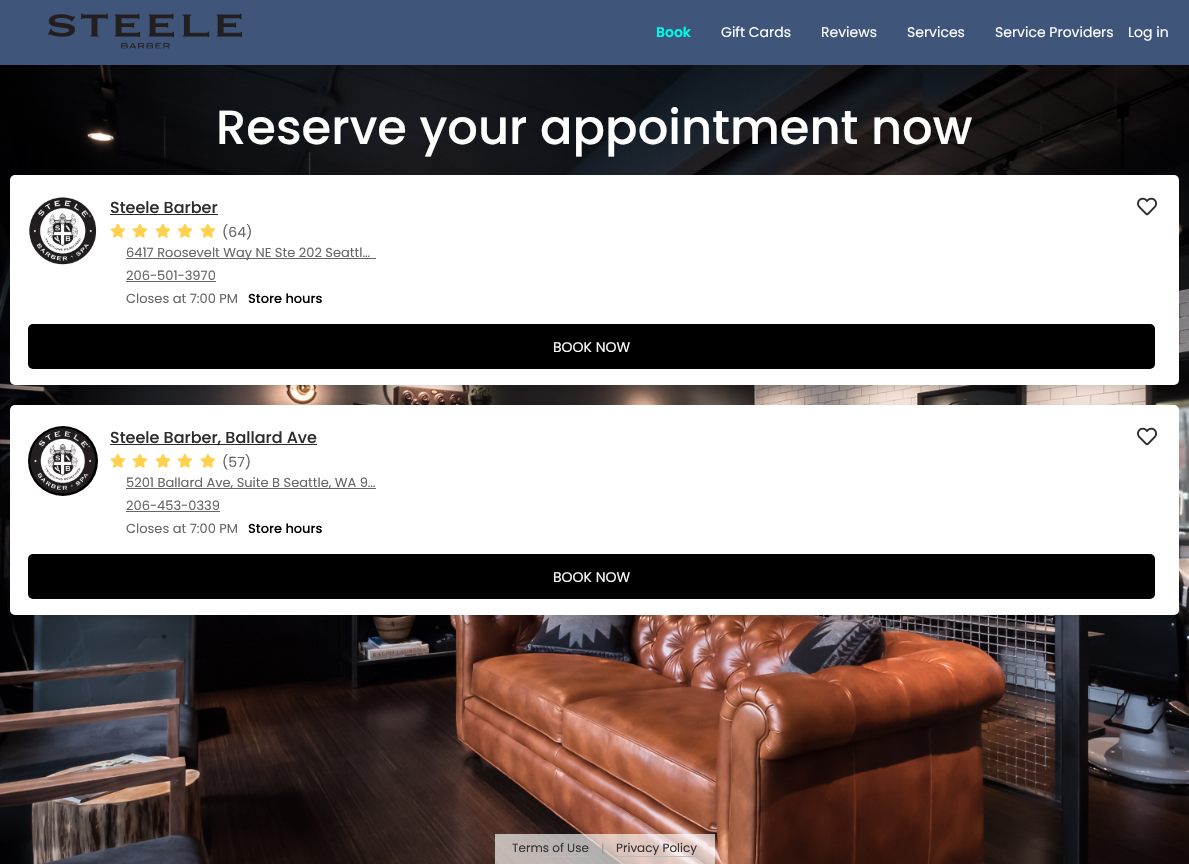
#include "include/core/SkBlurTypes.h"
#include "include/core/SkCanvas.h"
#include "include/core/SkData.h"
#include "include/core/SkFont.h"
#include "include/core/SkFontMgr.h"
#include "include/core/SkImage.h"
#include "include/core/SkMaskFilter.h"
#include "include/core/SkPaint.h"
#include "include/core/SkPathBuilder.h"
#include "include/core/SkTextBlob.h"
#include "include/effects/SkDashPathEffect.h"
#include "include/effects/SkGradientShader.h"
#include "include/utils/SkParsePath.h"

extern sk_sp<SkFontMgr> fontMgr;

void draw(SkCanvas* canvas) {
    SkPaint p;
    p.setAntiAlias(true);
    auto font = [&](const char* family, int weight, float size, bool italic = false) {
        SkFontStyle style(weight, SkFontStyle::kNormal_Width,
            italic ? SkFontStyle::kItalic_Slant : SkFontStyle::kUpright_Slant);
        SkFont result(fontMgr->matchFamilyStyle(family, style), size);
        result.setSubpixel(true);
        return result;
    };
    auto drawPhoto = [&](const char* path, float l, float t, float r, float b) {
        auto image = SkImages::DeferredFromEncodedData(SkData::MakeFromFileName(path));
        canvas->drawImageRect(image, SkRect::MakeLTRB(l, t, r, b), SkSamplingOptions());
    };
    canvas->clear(0xFFFFFFFF);
    p.setColor(0xFF3F557A);
    canvas->drawRect(SkRect::MakeLTRB(0, 0, 1189, 65), p);
    drawPhoto("media/1.png", 48, 13, 242, 49);
    auto font1 = font("Poppins", 600, 14);
    p.setColor(0xFF03F9EB);
    canvas->drawString("Book", 656, 37, font1, p);
    auto font2 = font("Poppins", 400, 14);
    p.setColor(0xFFFFFFFF);
    {
        const struct { const char* s; float x, y; } items[] = {
            {"Gift Cards", 721, 37},
            {"Reviews", 821, 37},
            {"Services", 907, 37},
            {"Service Providers", 995, 37},
            {"Log in", 1128, 37},
        };
        for (auto [s, x, y] : items) {
            canvas->drawString(s, x, y, font2, p);
        }
    }
    drawPhoto("media/2.png", 0, 65, 1189, 864);
    auto font3 = font("Poppins", 500, 48);
    canvas->drawString("Reserve your appointment now", 216, 144, font3, p);
    p.setColor(0x1A000000);
    p.setMaskFilter(SkMaskFilter::MakeBlur(kNormal_SkBlurStyle, 5));
    canvas->drawRoundRect(SkRect::MakeLTRB(10, 177, 1179, 387), 5, 5, p);
    p.setMaskFilter(nullptr);
    p.setColor(0xFFFFFFFF);
    canvas->drawRoundRect(SkRect::MakeLTRB(10, 175, 1179, 385), 5, 5, p);
    drawPhoto("media/3.png", 29, 197, 97, 265);
    auto font4 = font("Poppins", 500, 16);
    p.setColor(0xFF2C2C2C);
    canvas->drawString("Steele Barber", 110, 213, font4, p);
    canvas->drawRect(SkRect::MakeLTRB(110, 214, 218, 215), p);
    drawPhoto("media/4.png", 1137, 197, 1157, 216);
    drawPhoto("media/5.png", 110, 223, 126, 238);
    drawPhoto("media/5.png", 132, 223, 148, 238);
    drawPhoto("media/5.png", 155, 223, 171, 238);
    drawPhoto("media/5.png", 177, 223, 193, 238);
    drawPhoto("media/5.png", 200, 223, 216, 238);
    p.setColor(0xFF666666);
    canvas->drawString("(64)", 222, 237, font2, p);
    canvas->drawRect(SkRect::MakeLTRB(126, 258, 376, 259), p);
    auto font5 = font("Poppins", 400, 13);
    canvas->drawString("6417 Roosevelt Way NE Ste 202 Seattl…", 126, 257, font5, p);
    canvas->drawString("206-501-3970", 126, 280, font5, p);
    canvas->drawRect(SkRect::MakeLTRB(126, 281, 216, 282), p);
    canvas->drawString("Closes at 7:00 PM", 126, 303, font5, p);
    auto font6 = font("Poppins", 500, 13);
    p.setColor(0xFF000000);
    canvas->drawString("Store hours", 248, 303, font6, p);
    canvas->drawRoundRect(SkRect::MakeLTRB(28, 324, 1155, 369), 5, 5, p);
    p.setColor(0xFFFFFFFF);
    canvas->drawString("BOOK NOW", 553, 352, font2, p);
    p.setColor(0x1A000000);
    p.setMaskFilter(SkMaskFilter::MakeBlur(kNormal_SkBlurStyle, 5));
    canvas->drawRoundRect(SkRect::MakeLTRB(10, 407, 1179, 617), 5, 5, p);
    p.setMaskFilter(nullptr);
    p.setColor(0xFFFFFFFF);
    canvas->drawRoundRect(SkRect::MakeLTRB(10, 405, 1179, 615), 5, 5, p);
    drawPhoto("media/6.png", 28, 426, 98, 496);
    p.setColor(0xFF2C2C2C);
    canvas->drawRect(SkRect::MakeLTRB(110, 444, 317, 445), p);
    canvas->drawString("Steele Barber, Ballard Ave", 110, 443, font4, p);
    drawPhoto("media/4.png", 1137, 427, 1157, 446);
    drawPhoto("media/5.png", 110, 453, 126, 468);
    drawPhoto("media/5.png", 132, 453, 148, 468);
    drawPhoto("media/5.png", 155, 453, 171, 468);
    drawPhoto("media/5.png", 177, 453, 193, 468);
    drawPhoto("media/5.png", 200, 453, 216, 468);
    p.setColor(0xFF666666);
    canvas->drawString("(57)", 222, 467, font2, p);
    canvas->drawRect(SkRect::MakeLTRB(126, 488, 376, 489), p);
    canvas->drawString("5201 Ballard Ave, Suite B Seattle, WA 9…", 126, 487, font5, p);
    canvas->drawString("206-453-0339", 126, 510, font5, p);
    canvas->drawRect(SkRect::MakeLTRB(126, 511, 220, 512), p);
    canvas->drawString("Closes at 7:00 PM", 126, 533, font5, p);
    p.setColor(0xFF000000);
    canvas->drawString("Store hours", 248, 533, font6, p);
    canvas->drawRoundRect(SkRect::MakeLTRB(28, 554, 1155, 599), 5, 5, p);
    p.setColor(0xFFFFFFFF);
    canvas->drawString("BOOK NOW", 553, 582, font2, p);
    p.setColor(0xA6FFFFFF);
    canvas->drawRect(SkRect::MakeLTRB(495, 834, 715, 864), p);
    p.setColor(0xFFBBBBBB);
    canvas->drawRect(SkRect::MakeLTRB(512, 856, 589, 857), p);
    auto font7 = font("Poppins", 400, 12);
    p.setColor(0xFF333333);
    canvas->drawString("Terms of Use", 512, 852, font7, p);
    p.setColor(0xFF999999);
    canvas->drawString("|", 601, 853, font7, p);
    p.setColor(0xFFBBBBBB);
    canvas->drawRect(SkRect::MakeLTRB(616, 856, 697, 857), p);
    p.setColor(0xFF333333);
    canvas->drawString("Privacy Policy", 616, 852, font7, p);
}
